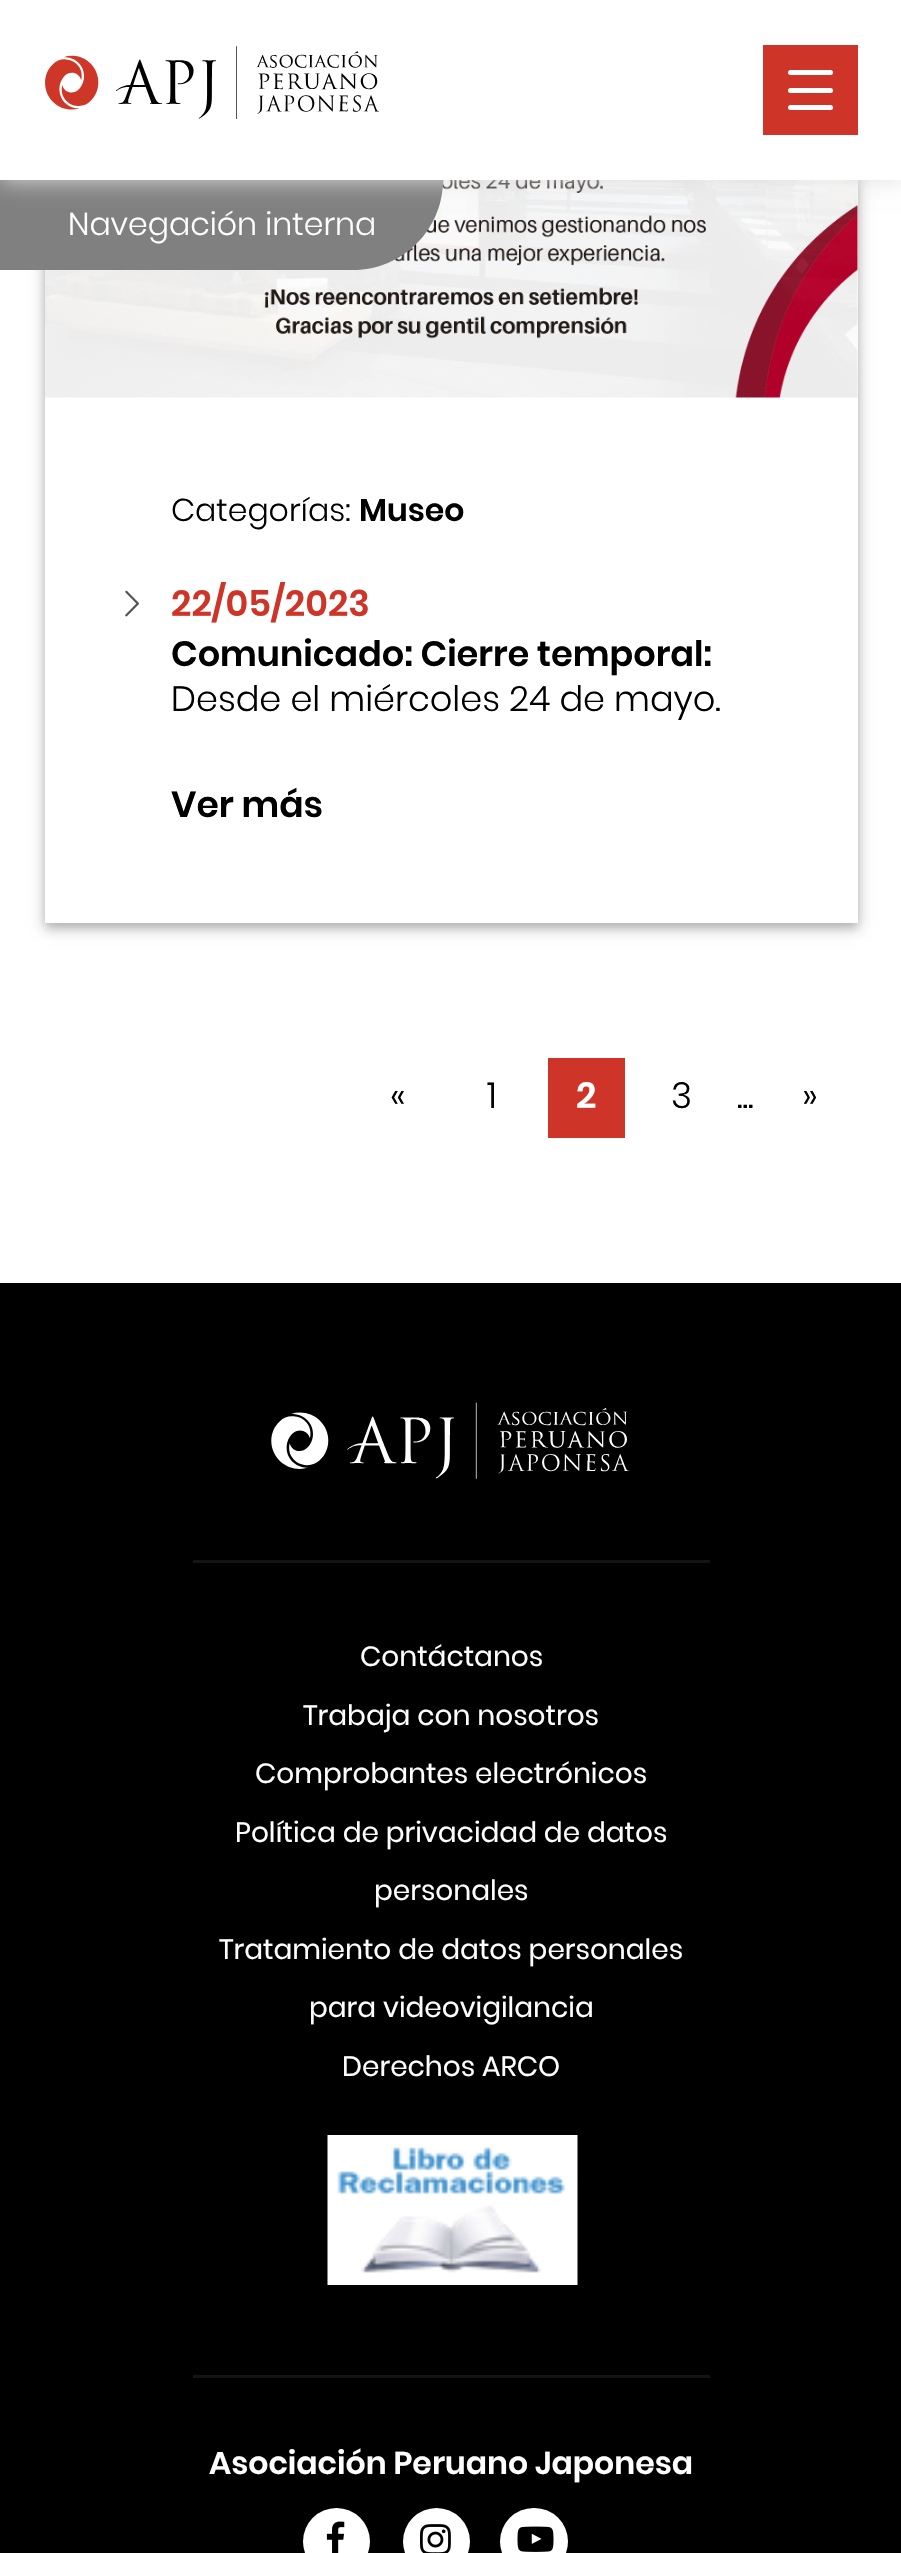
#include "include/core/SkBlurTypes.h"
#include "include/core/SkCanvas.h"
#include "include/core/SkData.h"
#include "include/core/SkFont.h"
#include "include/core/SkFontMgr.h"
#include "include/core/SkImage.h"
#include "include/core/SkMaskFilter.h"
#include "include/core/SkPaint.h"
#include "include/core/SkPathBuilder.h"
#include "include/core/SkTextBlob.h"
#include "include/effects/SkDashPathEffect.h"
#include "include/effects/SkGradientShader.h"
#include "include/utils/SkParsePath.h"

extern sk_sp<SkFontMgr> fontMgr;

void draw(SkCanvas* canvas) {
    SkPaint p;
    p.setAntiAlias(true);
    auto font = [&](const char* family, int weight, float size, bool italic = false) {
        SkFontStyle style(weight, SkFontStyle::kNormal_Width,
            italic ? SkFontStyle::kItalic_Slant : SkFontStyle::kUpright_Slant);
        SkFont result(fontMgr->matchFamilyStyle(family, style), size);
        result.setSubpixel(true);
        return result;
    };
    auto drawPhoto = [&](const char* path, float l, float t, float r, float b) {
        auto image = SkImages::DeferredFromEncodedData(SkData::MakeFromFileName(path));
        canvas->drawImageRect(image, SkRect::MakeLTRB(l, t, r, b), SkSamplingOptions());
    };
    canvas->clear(0xFFFFFFFF);
    canvas->save();
    canvas->clipPath(SkPathBuilder(SkPathFillType::kEvenOdd).moveTo(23, 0).lineTo(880, 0).lineTo(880, 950).lineTo(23, 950).close().moveTo(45, -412).lineTo(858, -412).lineTo(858, 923).lineTo(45, 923).close().detach(), true);
    p.setColor(0x3D000000);
    p.setMaskFilter(SkMaskFilter::MakeBlur(kNormal_SkBlurStyle, 7));
    canvas->drawRect(SkRect::MakeLTRB(45, -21, 858, 928), p);
    p.setMaskFilter(nullptr);
    canvas->restore();
    canvas->save();
    canvas->clipPath(SkPathBuilder(SkPathFillType::kEvenOdd).moveTo(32, 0).lineTo(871, 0).lineTo(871, 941).lineTo(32, 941).close().moveTo(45, -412).lineTo(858, -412).lineTo(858, 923).lineTo(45, 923).close().detach(), true);
    p.setColor(0x1F000000);
    p.setMaskFilter(SkMaskFilter::MakeBlur(kNormal_SkBlurStyle, 4));
    canvas->drawRect(SkRect::MakeLTRB(45, -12, 858, 928), p);
    p.setMaskFilter(nullptr);
    canvas->restore();
    drawPhoto("media/2.png", 45, 180, 858, 398);
    p.setColor(0xFF808080);
    canvas->drawPath(SkPathBuilder().moveTo(0, 180).lineTo(443, 180).cubicTo(443, 229.5f, 402.5f, 270, 353, 270).lineTo(0, 270).close().detach(), p);
    p.setColor(0xFFE0E0E0);
    p.setMaskFilter(SkMaskFilter::MakeBlur(kNormal_SkBlurStyle, 11));
    canvas->drawRect(SkRect::MakeLTRB(0, 0, 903, 180), p);
    p.setMaskFilter(nullptr);
    p.setColor(0xFFFFFFFF);
    canvas->drawRect(SkRect::MakeLTRB(0, 0, 901, 180), p);
    drawPhoto("media/1.png", 45, 46, 379, 119);
    p.setColor(0xFFCE3428);
    canvas->drawRect(SkRect::MakeLTRB(763, 45, 858, 135), p);
    p.setColor(0xFFFFFFFF);
    canvas->drawRoundRect(SkRect::MakeLTRB(788, 70, 833, 75), 2.5f, 2.5f, p);
    canvas->drawRoundRect(SkRect::MakeLTRB(788, 88, 833, 93), 2.5f, 2.5f, p);
    canvas->drawRoundRect(SkRect::MakeLTRB(788, 105, 833, 110), 2.5f, 2.5f, p);
    auto font1 = font("Poppins", 300, 31.5f);
    canvas->drawString("Navegación interna", 68, 235, font1, p);
    p.setColor(0xFF000000);
    canvas->drawString("Categorías:", 171, 521, font1, p);
    auto font2 = font("Poppins", 600, 31.5f);
    canvas->drawString("Museo", 359, 521, font2, p);
    drawPhoto("media/3.png", 125, 590, 139, 617);
    auto font3 = font("Poppins", 600, 36);
    p.setColor(0xFFCE3428);
    canvas->drawString("22/05/2023", 171, 616, font3, p);
    auto font4 = font("Poppins", 600, 35.1f);
    p.setColor(0xFF000000);
    canvas->drawString("Comunicado: Cierre temporal:", 171, 666, font4, p);
    auto font5 = font("Poppins", 300, 35.1f);
    canvas->drawString("Desde el miércoles 24 de mayo.", 171, 711, font5, p);
    canvas->drawString("Ver más", 171, 817, font3, p);
    auto font6 = font("Poppins", 300, 36);
    canvas->drawString("«", 390, 1108, font6, p);
    canvas->drawString("1", 487, 1108, font6, p);
    p.setColor(0xFFCE3428);
    canvas->drawRect(SkRect::MakeLTRB(548, 1058, 625, 1138), p);
    p.setColor(0xFFFFFFFF);
    canvas->drawString("2", 576, 1108, font3, p);
    p.setColor(0xFF000000);
    {
        const struct { const char* s; float x, y; } items[] = {
            {"3", 671, 1108},
            {"»", 802, 1108},
            {"...", 737, 1108},
        };
        for (auto [s, x, y] : items) {
            canvas->drawString(s, x, y, font6, p);
        }
    }
    canvas->drawRect(SkRect::MakeLTRB(0, 1283, 901, 2553), p);
    p.setColor(0xFF141414);
    canvas->drawRect(SkRect::MakeLTRB(193, 1560, 710, 1563), p);
    drawPhoto("media/4.png", 271, 1402, 629, 1479);
    canvas->drawRect(SkRect::MakeLTRB(193, 2375, 710, 2378), p);
    auto font7 = font("Poppins", 400, 27.9f);
    p.setColor(0xFFFFFFFF);
    {
        const struct { const char* s; float x, y; } items[] = {
            {"Contáctanos", 360, 1666},
            {"Trabaja con nosotros", 303, 1725},
            {"Comprobantes electrónicos", 255, 1783},
            {"Política de privacidad de datos", 235, 1842},
            {"personales", 374, 1900},
            {"Tratamiento de datos personales", 219, 1959},
            {"para videovigilancia", 309, 2017},
            {"Derechos ARCO", 342, 2076},
        };
        for (auto [s, x, y] : items) {
            canvas->drawString(s, x, y, font7, p);
        }
    }
    drawPhoto("media/5.png", 327, 2135, 578, 2285);
    canvas->drawString("Asociación Peruano Japonesa", 209, 2474, font2, p);
    canvas->drawCircle(336.5f, 2541.5f, 33.5f, p);
    drawPhoto("media/6.png", 326, 2521, 345, 2553);
    canvas->drawCircle(436.5f, 2541.5f, 33.5f, p);
    drawPhoto("media/7.png", 420, 2524, 451, 2553);
    canvas->drawRoundRect(SkRect::MakeLTRB(500, 2508, 568, 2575), 33.5f, 33.5f, p);
    drawPhoto("media/8.png", 517, 2526, 554, 2552);
}
